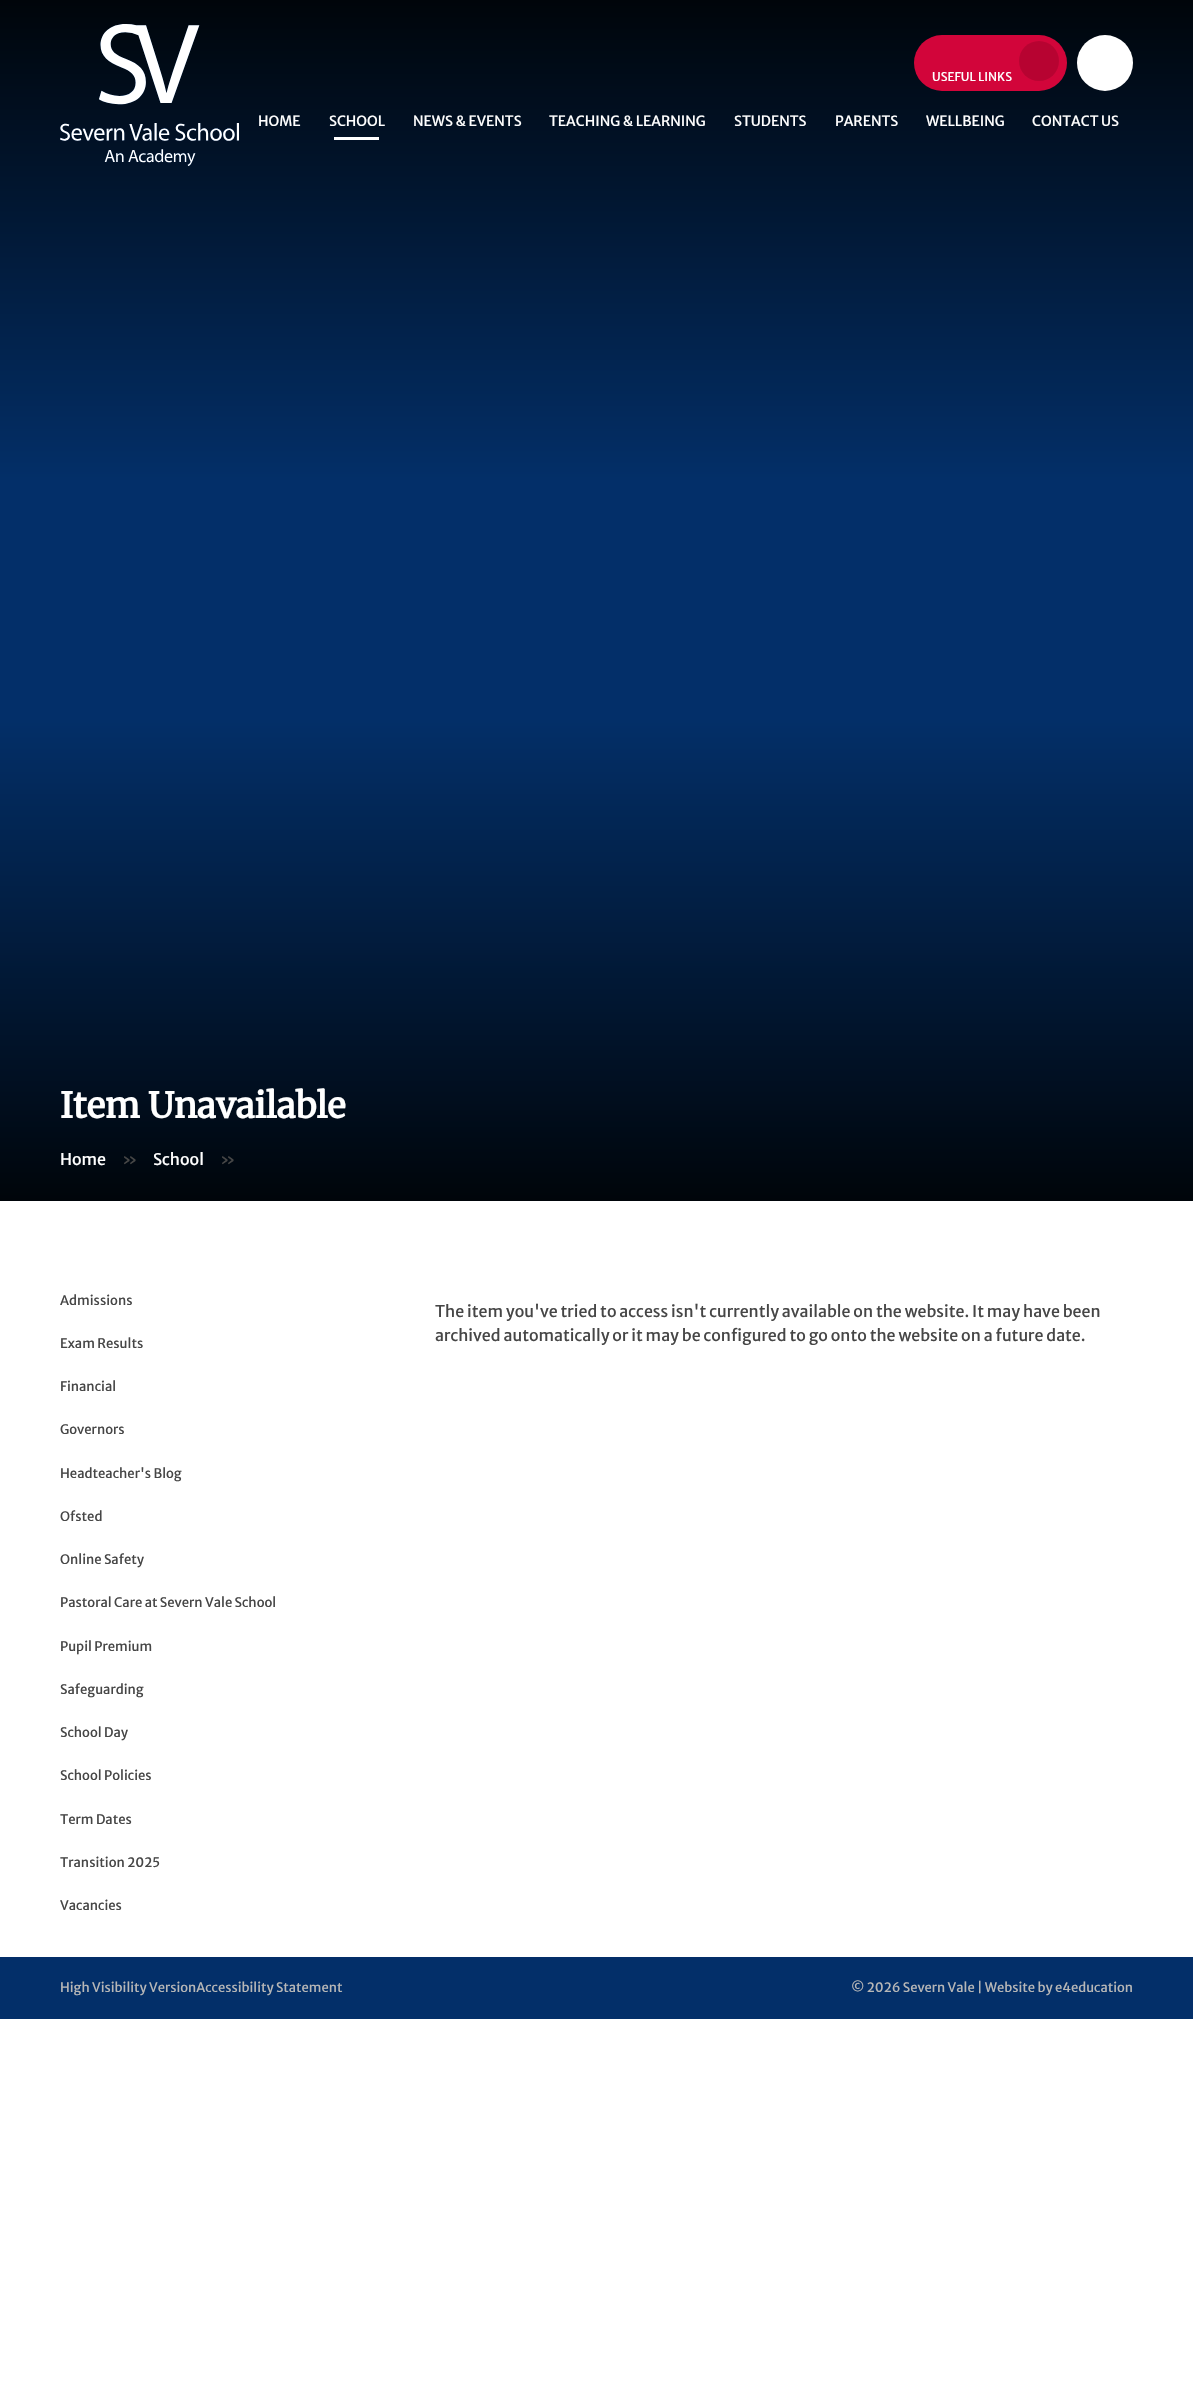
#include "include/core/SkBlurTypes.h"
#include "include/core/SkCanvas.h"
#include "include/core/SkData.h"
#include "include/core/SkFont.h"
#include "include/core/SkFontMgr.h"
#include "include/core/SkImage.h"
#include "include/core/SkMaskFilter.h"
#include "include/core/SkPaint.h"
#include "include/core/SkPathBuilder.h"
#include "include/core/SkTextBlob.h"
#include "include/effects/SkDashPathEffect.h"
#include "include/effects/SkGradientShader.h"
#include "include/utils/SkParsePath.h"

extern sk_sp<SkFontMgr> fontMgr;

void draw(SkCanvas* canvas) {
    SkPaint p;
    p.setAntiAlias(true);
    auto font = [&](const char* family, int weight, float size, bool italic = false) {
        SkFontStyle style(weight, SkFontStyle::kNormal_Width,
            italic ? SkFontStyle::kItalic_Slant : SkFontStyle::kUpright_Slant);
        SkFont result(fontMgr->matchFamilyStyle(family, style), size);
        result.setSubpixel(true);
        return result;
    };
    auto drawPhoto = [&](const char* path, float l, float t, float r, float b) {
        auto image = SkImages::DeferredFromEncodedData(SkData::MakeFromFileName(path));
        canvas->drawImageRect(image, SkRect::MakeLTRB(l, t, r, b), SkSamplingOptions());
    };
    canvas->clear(0xFFFFFFFF);
    p.setColor(0xFF032F69);
    canvas->drawRect(SkRect::MakeLTRB(0, 480, 1193, 720), p);
    {
        const SkColor colors[] = {0xFF00050A, 0xFF032F68};
        const float stops[] = {0, 1};
        const SkPoint ends[] = {{597, 0}, {597, 480}};
        p.setShader(SkGradientShader::MakeLinear(ends, colors, stops, 2, SkTileMode::kClamp));
        p.setAlpha(255);
    }
    canvas->drawRect(SkRect::MakeLTRB(0, 0, 1193, 480), p);
    {
        const SkColor colors[] = {0xFF00050A, 0xFF032F68};
        const float stops[] = {0, 1};
        const SkPoint ends[] = {{597, 1201}, {597, 720}};
        p.setShader(SkGradientShader::MakeLinear(ends, colors, stops, 2, SkTileMode::kClamp));
        p.setAlpha(255);
    }
    canvas->drawRect(SkRect::MakeLTRB(0, 720, 1193, 1201), p);
    drawPhoto("media/1.png", 60, 24, 239, 166);
    p.setShader(nullptr);
    p.setColor(0xFFD2053A);
    canvas->drawRoundRect(SkRect::MakeLTRB(914, 35, 1067, 91), 28, 28, p);
    auto font1 = font("Merriweather Sans", 400, 12);
    p.setColor(0xFFFFFFFF);
    canvas->drawString("USEFUL LINKS", 932, 81, font1, p);
    p.setColor(0xFFB70331);
    canvas->drawCircle(1039, 61, 20, p);
    p.setColor(0xFFFFFFFF);
    canvas->drawCircle(1105, 63, 28, p);
    auto font2 = font("Merriweather Sans", 400, 14);
    canvas->drawString("HOME", 258, 126, font2, p);
    canvas->drawString("SCHOOL", 329, 126, font2, p);
    canvas->drawRect(SkRect::MakeLTRB(334, 137, 379, 140), p);
    {
        const struct { const char* s; float x, y; } items[] = {
            {"NEWS & EVENTS", 413, 126},
            {"TEACHING & LEARNING", 549, 126},
            {"STUDENTS", 734, 126},
            {"PARENTS", 835, 126},
            {"WELLBEING", 926, 126},
            {"CONTACT US", 1032, 126},
        };
        for (auto [s, x, y] : items) {
            canvas->drawString(s, x, y, font2, p);
        }
    }
    auto font3 = font("Merriweather", 700, 35);
    canvas->drawString("Item Unavailable", 60, 1118, font3, p);
    auto font4 = font("Merriweather Sans", 400, 16);
    canvas->drawString("Home", 60, 1165, font4, p);
    p.setColor(0xFF464646);
    canvas->drawString("»", 122, 1165, font4, p);
    p.setColor(0xFFFFFFFF);
    canvas->drawString("School", 153, 1165, font4, p);
    p.setColor(0xFF464646);
    canvas->drawString("»", 220, 1165, font4, p);
    auto font5 = font("Merriweather Sans", 400, 13.1f);
    {
        const struct { const char* s; float x, y; } items[] = {
            {"Admissions", 60, 1305},
            {"Exam Results", 60, 1348},
            {"Financial", 60, 1391},
            {"Governors", 60, 1434},
            {"Headteacher's Blog", 60, 1478},
            {"Ofsted", 60, 1521},
            {"Online Safety", 60, 1564},
            {"Pastoral Care at Severn Vale School", 60, 1607},
            {"Pupil Premium", 60, 1651},
            {"Safeguarding", 60, 1694},
            {"School Day", 60, 1737},
            {"School Policies", 60, 1780},
            {"Term Dates", 60, 1824},
            {"Transition 2025", 60, 1867},
            {"Vacancies", 60, 1910},
        };
        for (auto [s, x, y] : items) {
            canvas->drawString(s, x, y, font5, p);
        }
    }
    canvas->drawString("The item you've tried to access isn't currently available on the website. It may have been", 435, 1317, font4, p);
    canvas->drawString("archived automatically or it may be configured to go onto the website on a future date.", 435, 1341, font4, p);
    p.setColor(0xFF032F69);
    canvas->drawRect(SkRect::MakeLTRB(0, 1957, 1193, 2019), p);
    auto font6 = font("Merriweather Sans", 400, 13);
    p.setColor(0xFFB7B7B7);
    canvas->drawString("High Visibility VersionAccessibility Statement", 60, 1992, font6, p);
    canvas->drawString("© 2026 Severn Vale | Website by e4education", 851, 1992, font6, p);
}
